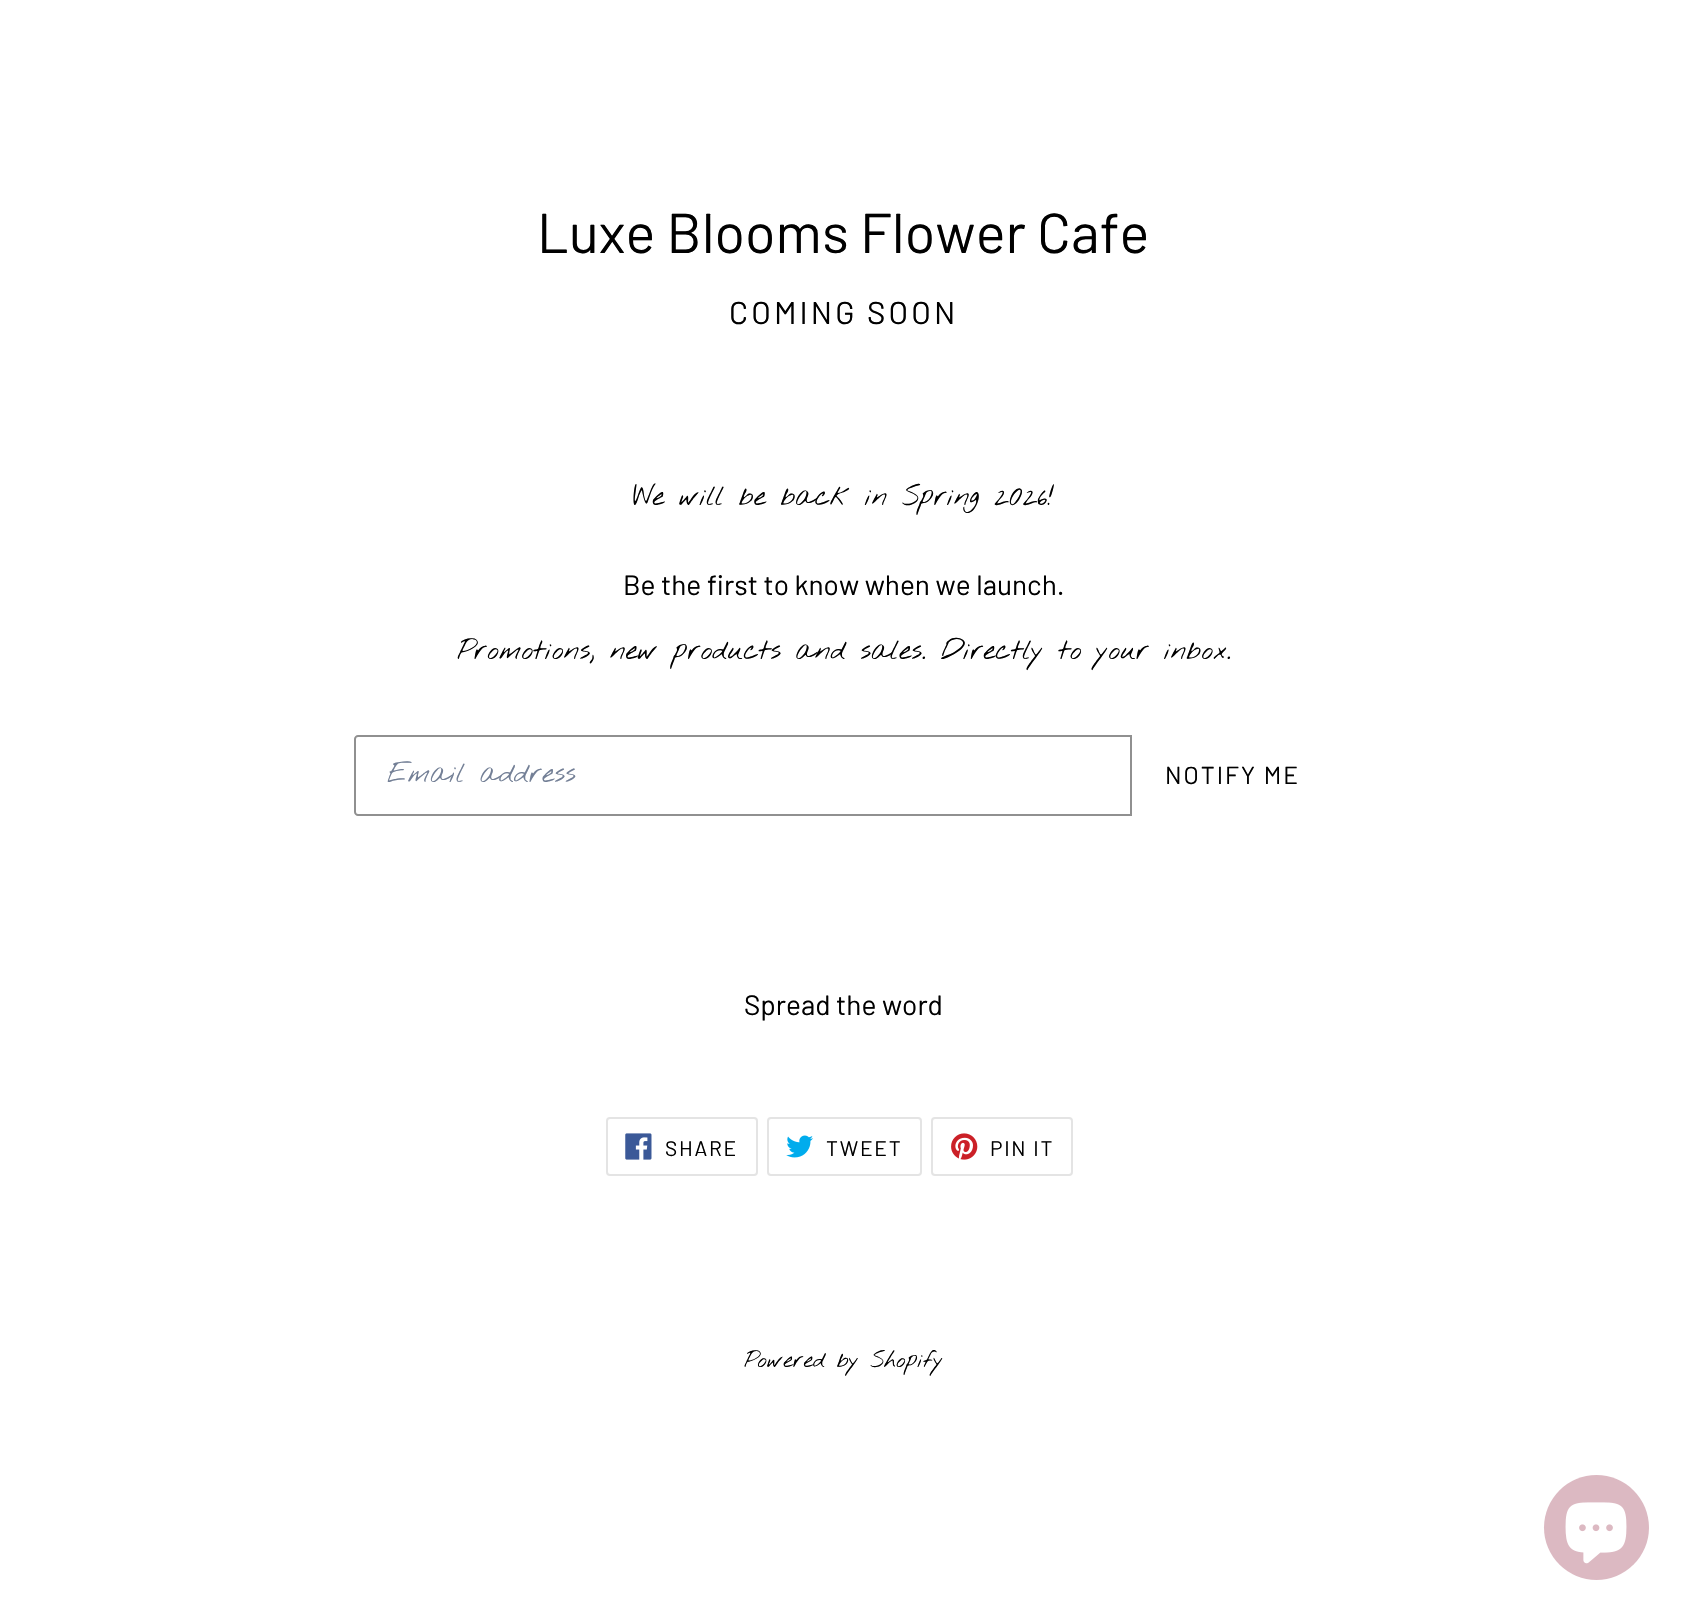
#include "include/core/SkBlurTypes.h"
#include "include/core/SkCanvas.h"
#include "include/core/SkData.h"
#include "include/core/SkFont.h"
#include "include/core/SkFontMgr.h"
#include "include/core/SkImage.h"
#include "include/core/SkMaskFilter.h"
#include "include/core/SkPaint.h"
#include "include/core/SkPathBuilder.h"
#include "include/core/SkTextBlob.h"
#include "include/effects/SkDashPathEffect.h"
#include "include/effects/SkGradientShader.h"
#include "include/utils/SkParsePath.h"

extern sk_sp<SkFontMgr> fontMgr;

void draw(SkCanvas* canvas) {
    SkPaint p;
    p.setAntiAlias(true);
    auto font = [&](const char* family, int weight, float size, bool italic = false) {
        SkFontStyle style(weight, SkFontStyle::kNormal_Width,
            italic ? SkFontStyle::kItalic_Slant : SkFontStyle::kUpright_Slant);
        SkFont result(fontMgr->matchFamilyStyle(family, style), size);
        result.setSubpixel(true);
        return result;
    };
    auto drawTracked = [&](const char* s, float x, float y, const SkFont& font, const SkPaint& ink, float letter, float word) {
        std::vector<SkGlyphID> glyphs(font.countText(s, strlen(s), SkTextEncoding::kUTF8));
        std::vector<float> xs(glyphs.size());
        font.textToGlyphs(s, strlen(s), SkTextEncoding::kUTF8, glyphs);
        font.getXPos(glyphs, xs, x);
        float extra = 0;
        for (size_t i = 0; i < glyphs.size(); i++) {
            xs[i] += extra;
            extra += letter + word * (glyphs[i] == font.unicharToGlyph(' '));
        }
        canvas->drawTextBlob(SkTextBlob::MakeFromPosHGlyphs(glyphs, xs, y, font), 0, 0, ink);
    };
    auto drawPhoto = [&](const char* path, float l, float t, float r, float b) {
        auto image = SkImages::DeferredFromEncodedData(SkData::MakeFromFileName(path));
        canvas->drawImageRect(image, SkRect::MakeLTRB(l, t, r, b), SkSamplingOptions());
    };
    canvas->clear(0xFFFFFFFF);
    auto font1 = font("Barlow", 400, 56);
    p.setColor(0xFF000000);
    canvas->drawString("Luxe Blooms Flower Cafe", 537, 253, font1, p);
    auto font2 = font("Barlow", 400, 31.5f);
    drawTracked("COMING SOON", 729, 324, font2, p, 3.1f, 0);
    auto font3 = font("Nothing You Could Do", 400, 28);
    canvas->drawString("We will be back in Spring 2026!", 633, 505, font3, p);
    auto font4 = font("Barlow", 400, 28);
    canvas->drawString("Be the first to know when we launch.", 623, 595, font4, p);
    canvas->drawString("Promotions, new products and sales. Directly to your inbox.", 457, 659, font3, p);
    p.setStyle(SkPaint::kStroke_Style);
    p.setStrokeWidth(2);
    p.setColor(0xFF909090);
    canvas->drawPath(SkPathBuilder().moveTo(358, 736).lineTo(1131, 736).lineTo(1131, 815).lineTo(358, 815).cubicTo(356.5f, 815, 355, 813.5f, 355, 812).lineTo(355, 739).cubicTo(355, 737.5f, 356.5f, 736, 358, 736).close().detach(), p);
    p.setStyle(SkPaint::kFill_Style);
    p.setColor(0xFF737F96);
    canvas->drawString("Email address", 387, 782, font3, p);
    auto font5 = font("Barlow", 400, 24.5f);
    p.setColor(0xFF000000);
    drawTracked("NOTIFY ME", 1165, 784, font5, p, 2, 0);
    canvas->drawString("Spread the word", 744, 1015, font4, p);
    p.setStyle(SkPaint::kStroke_Style);
    p.setColor(0xFFE4E4E4);
    canvas->drawRoundRect(SkRect::MakeLTRB(607, 1118, 757, 1175), 3, 3, p);
    drawPhoto("media/1.png", 625, 1133, 652, 1160);
    auto font6 = font("Barlow", 400, 21);
    p.setStyle(SkPaint::kFill_Style);
    p.setColor(0xFF000000);
    drawTracked("SHARE", 665, 1156, font6, p, 1.75f, 0);
    p.setStyle(SkPaint::kStroke_Style);
    p.setColor(0xFFE4E4E4);
    canvas->drawRoundRect(SkRect::MakeLTRB(768, 1118, 921, 1175), 3, 3, p);
    drawPhoto("media/2.png", 786, 1135, 813, 1158);
    p.setStyle(SkPaint::kFill_Style);
    p.setColor(0xFF000000);
    drawTracked("TWEET", 826, 1156, font6, p, 1.75f, 0);
    p.setStyle(SkPaint::kStroke_Style);
    p.setColor(0xFFE4E4E4);
    canvas->drawRoundRect(SkRect::MakeLTRB(932, 1118, 1072, 1175), 3, 3, p);
    drawPhoto("media/3.png", 951, 1133, 978, 1160);
    p.setStyle(SkPaint::kFill_Style);
    p.setColor(0xFF000000);
    drawTracked("PIN IT", 990, 1156, font6, p, 1.75f, 0);
    auto font7 = font("Nothing You Could Do", 400, 22.5f);
    canvas->drawString("Powered by Shopify", 744, 1367, font7, p);
    p.setColor(0xFFDCB9C2);
    canvas->drawCircle(1596.5f, 1527.5f, 52.5f, p);
    drawPhoto("media/4.png", 1565, 1502, 1627, 1564);
}
